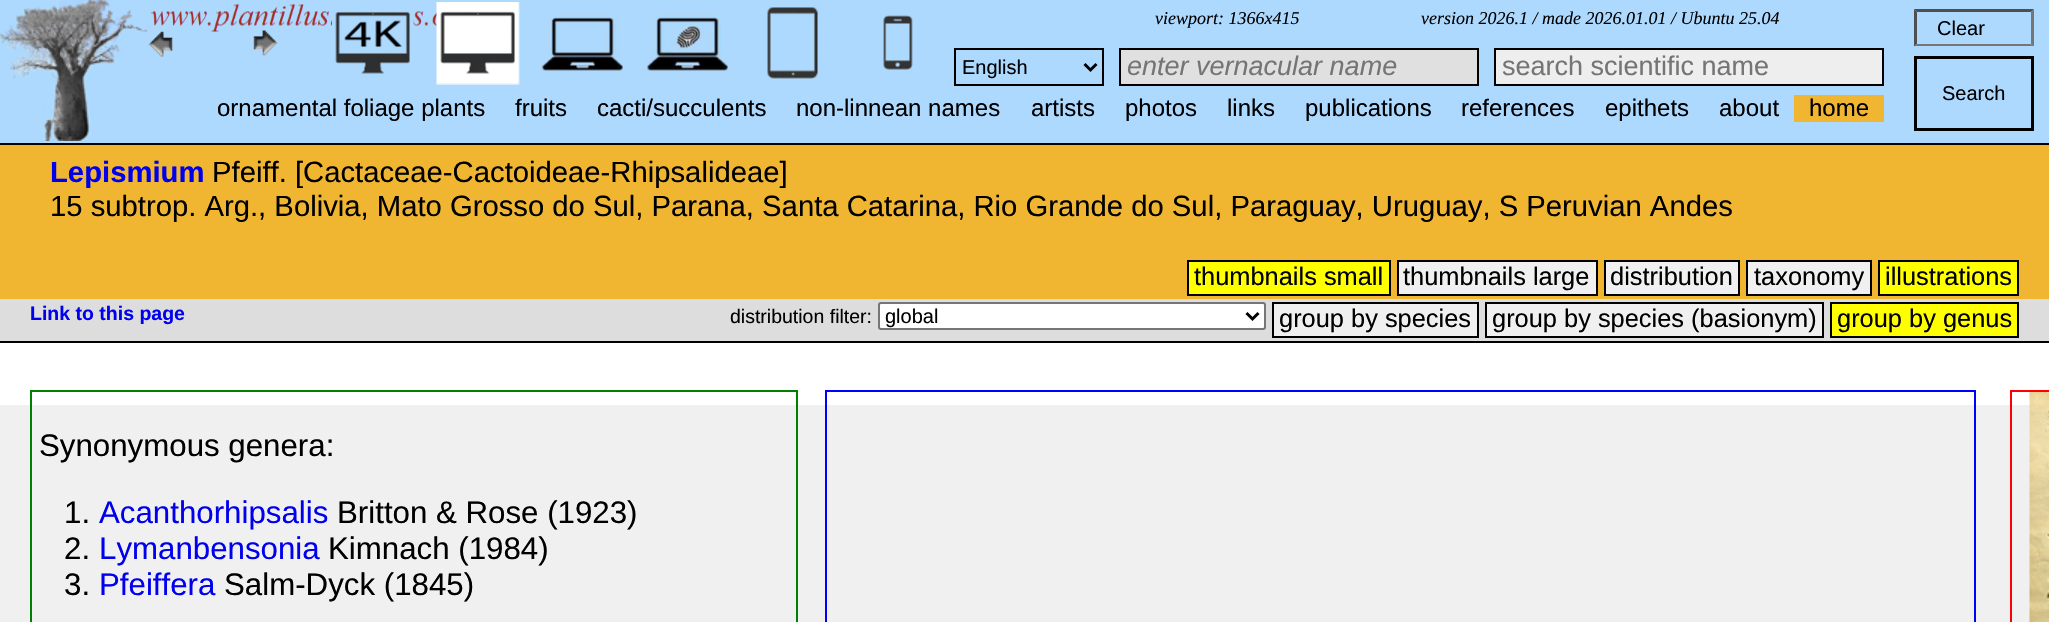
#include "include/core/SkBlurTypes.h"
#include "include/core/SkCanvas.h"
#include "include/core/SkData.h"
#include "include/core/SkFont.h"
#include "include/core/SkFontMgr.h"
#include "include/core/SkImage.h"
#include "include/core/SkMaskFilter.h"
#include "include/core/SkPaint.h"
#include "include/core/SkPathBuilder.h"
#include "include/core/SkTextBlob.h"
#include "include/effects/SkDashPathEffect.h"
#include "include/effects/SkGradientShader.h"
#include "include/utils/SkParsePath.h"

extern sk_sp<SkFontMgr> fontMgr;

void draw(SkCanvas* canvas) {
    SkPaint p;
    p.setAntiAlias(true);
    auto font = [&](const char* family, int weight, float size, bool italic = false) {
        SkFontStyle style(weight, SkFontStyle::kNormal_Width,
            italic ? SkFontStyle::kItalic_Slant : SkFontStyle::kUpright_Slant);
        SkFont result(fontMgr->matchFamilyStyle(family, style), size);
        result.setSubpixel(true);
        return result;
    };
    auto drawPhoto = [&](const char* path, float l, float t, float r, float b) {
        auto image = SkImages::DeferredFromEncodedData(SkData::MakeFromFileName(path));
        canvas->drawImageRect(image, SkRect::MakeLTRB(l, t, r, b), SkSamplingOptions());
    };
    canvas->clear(0xFFFFFFFF);
    p.setColor(0xFFADD9FE);
    canvas->drawRect(SkRect::MakeLTRB(0, 0, 2049, 143), p);
    p.setColor(0xFF000000);
    canvas->drawRect(SkRect::MakeLTRB(0, 143, 2049, 145), p);
    drawPhoto("media/1.png", 0, 0, 150, 141);
    drawPhoto("media/2.png", 150, 4, 437, 32);
    drawPhoto("media/3.png", 332, 6, 415, 74);
    drawPhoto("media/4.png", 436, 2, 520, 85);
    drawPhoto("media/5.png", 541, 14, 624, 71);
    drawPhoto("media/6.png", 646, 14, 729, 71);
    drawPhoto("media/7.png", 767, 7, 818, 79);
    drawPhoto("media/8.png", 883, 15, 913, 70);
    auto font1 = font("Liberation Serif", 400, 18, true);
    canvas->drawString("viewport: 1366x415", 1155, 24, font1, p);
    canvas->drawString("version 2026.1 / made 2026.01.01 / Ubuntu 25.04", 1421, 24, font1, p);
    drawPhoto("media/9.png", 148, 31, 173, 57);
    drawPhoto("media/10.png", 253, 30, 278, 56);
    p.setColor(0xFF4F4F4F);
    canvas->drawPath(SkPathBuilder().moveTo(1914, 9).lineTo(2034, 9).lineTo(2031, 12).lineTo(1917, 12).close().detach(), p);
    p.setColor(0xFF767676);
    canvas->drawPath(SkPathBuilder().moveTo(2034, 9).lineTo(2034, 46.5f).lineTo(2031, 43.5f).lineTo(2031, 12).close().detach(), p);
    canvas->drawPath(SkPathBuilder().moveTo(2034, 46).lineTo(1914, 46).lineTo(1917, 44).lineTo(2031, 44).close().detach(), p);
    p.setColor(0xFF4F4F4F);
    canvas->drawPath(SkPathBuilder().moveTo(1914, 46.5f).lineTo(1914, 9).lineTo(1917, 12).lineTo(1917, 43.5f).close().detach(), p);
    auto font2 = font("Liberation Sans", 400, 20);
    p.setColor(0xFF000000);
    canvas->drawString("Clear", 1937, 35, font2, p);
    p.setStyle(SkPaint::kStroke_Style);
    p.setStrokeWidth(2);
    canvas->drawRect(SkRect::MakeLTRB(955, 49, 1103, 85), p);
    p.setStrokeWidth(3);
    canvas->drawPath(SkPathBuilder().moveTo(1084.5f, 64).lineTo(1090.5f, 70).lineTo(1096.5f, 64).detach(), p);
    p.setStyle(SkPaint::kFill_Style);
    canvas->drawString("English", 962, 74, font2, p);
    p.setColor(0xFFE0E0E0);
    canvas->drawRect(SkRect::MakeLTRB(1120, 49, 1478, 85), p);
    p.setStyle(SkPaint::kStroke_Style);
    p.setStrokeWidth(2);
    p.setColor(0xFF000000);
    canvas->drawRect(SkRect::MakeLTRB(1120, 49, 1478, 85), p);
    auto font3 = font("Liberation Sans", 400, 27, true);
    p.setStyle(SkPaint::kFill_Style);
    p.setColor(0xFF757575);
    canvas->drawString("enter vernacular name", 1127, 75, font3, p);
    p.setColor(0xFFEEEEEE);
    canvas->drawRect(SkRect::MakeLTRB(1495, 49, 1883, 85), p);
    p.setStyle(SkPaint::kStroke_Style);
    p.setColor(0xFF000000);
    canvas->drawRect(SkRect::MakeLTRB(1495, 49, 1883, 85), p);
    auto font4 = font("Liberation Sans", 400, 27);
    p.setStyle(SkPaint::kFill_Style);
    p.setColor(0xFF757575);
    canvas->drawString("search scientific name", 1502, 75, font4, p);
    p.setStyle(SkPaint::kStroke_Style);
    p.setStrokeWidth(3);
    p.setColor(0xFF000000);
    canvas->drawRect(SkRect::MakeLTRB(1915.5f, 57.5f, 2032.5f, 129.5f), p);
    p.setStyle(SkPaint::kFill_Style);
    canvas->drawString("Search", 1942, 100, font2, p);
    auto font5 = font("Liberation Sans", 400, 24);
    {
        const struct { const char* s; float x, y; } items[] = {
            {"ornamental foliage plants", 217, 116},
            {"fruits", 515, 116},
            {"cacti/succulents", 597, 116},
            {"non-linnean names", 796, 116},
            {"artists", 1031, 116},
            {"photos", 1125, 116},
            {"links", 1227, 116},
            {"publications", 1305, 116},
            {"references", 1461, 116},
            {"epithets", 1605, 116},
            {"about", 1719, 116},
        };
        for (auto [s, x, y] : items) {
            canvas->drawString(s, x, y, font5, p);
        }
    }
    p.setColor(0xFFF0B531);
    canvas->drawRect(SkRect::MakeLTRB(1794, 95, 1884, 122), p);
    p.setColor(0xFF000000);
    canvas->drawString("home", 1809, 116, font5, p);
    p.setColor(0xFFF0B531);
    canvas->drawRect(SkRect::MakeLTRB(0, 145, 2049, 299), p);
    auto font6 = font("Liberation Sans", 700, 29.25f);
    p.setColor(0xFF0000EE);
    canvas->drawString("Lepismium", 50, 182, font6, p);
    auto font7 = font("Liberation Sans", 400, 29.25f);
    p.setColor(0xFF000000);
    canvas->drawString("Pfeiff. [Cactaceae-Cactoideae-Rhipsalideae]", 212, 182, font7, p);
    canvas->drawString("15 subtrop. Arg., Bolivia, Mato Grosso do Sul, Parana, Santa Catarina, Rio Grande do Sul, Paraguay, Uruguay, S Peruvian Andes", 50, 216, font7, p);
    p.setColor(0xFFFFFF00);
    canvas->drawRect(SkRect::MakeLTRB(1188, 261, 1390, 295), p);
    p.setStyle(SkPaint::kStroke_Style);
    p.setStrokeWidth(2);
    p.setColor(0xFF000000);
    canvas->drawRect(SkRect::MakeLTRB(1188, 261, 1390, 295), p);
    auto font8 = font("Liberation Sans", 400, 25.4f);
    p.setStyle(SkPaint::kFill_Style);
    canvas->drawString("thumbnails small", 1194, 285, font8, p);
    p.setColor(0xFFF0F0F0);
    canvas->drawRect(SkRect::MakeLTRB(1398, 261, 1597, 295), p);
    p.setStyle(SkPaint::kStroke_Style);
    p.setColor(0xFF000000);
    canvas->drawRect(SkRect::MakeLTRB(1398, 261, 1597, 295), p);
    p.setStyle(SkPaint::kFill_Style);
    canvas->drawString("thumbnails large", 1403, 285, font8, p);
    p.setColor(0xFFF0F0F0);
    canvas->drawRect(SkRect::MakeLTRB(1605, 261, 1739, 295), p);
    p.setStyle(SkPaint::kStroke_Style);
    p.setColor(0xFF000000);
    canvas->drawRect(SkRect::MakeLTRB(1605, 261, 1739, 295), p);
    p.setStyle(SkPaint::kFill_Style);
    canvas->drawString("distribution", 1610, 285, font8, p);
    p.setColor(0xFFF0F0F0);
    canvas->drawRect(SkRect::MakeLTRB(1747, 261, 1871, 295), p);
    p.setStyle(SkPaint::kStroke_Style);
    p.setColor(0xFF000000);
    canvas->drawRect(SkRect::MakeLTRB(1747, 261, 1871, 295), p);
    p.setStyle(SkPaint::kFill_Style);
    canvas->drawString("taxonomy", 1754, 285, font8, p);
    p.setColor(0xFFFFFF00);
    canvas->drawRect(SkRect::MakeLTRB(1879, 261, 2018, 295), p);
    p.setStyle(SkPaint::kStroke_Style);
    p.setColor(0xFF000000);
    canvas->drawRect(SkRect::MakeLTRB(1879, 261, 2018, 295), p);
    p.setStyle(SkPaint::kFill_Style);
    canvas->drawString("illustrations", 1885, 285, font8, p);
    p.setColor(0xFFDDDDDD);
    canvas->drawRect(SkRect::MakeLTRB(0, 299, 2049, 341), p);
    p.setColor(0xFF000000);
    canvas->drawRect(SkRect::MakeLTRB(0, 341, 2049, 343), p);
    auto font9 = font("Liberation Sans", 700, 19.5f);
    p.setColor(0xFF0000EE);
    canvas->drawString("Link to this page", 30, 320, font9, p);
    auto font10 = font("Liberation Sans", 400, 19.5f);
    p.setColor(0xFF000000);
    canvas->drawString("distribution filter:", 730, 323, font10, p);
    p.setColor(0xFFFFFFFF);
    canvas->drawRoundRect(SkRect::MakeLTRB(879, 303, 1265, 329), 2, 2, p);
    p.setStyle(SkPaint::kStroke_Style);
    p.setColor(0xFF767676);
    canvas->drawRoundRect(SkRect::MakeLTRB(879, 303, 1265, 329), 2, 2, p);
    p.setStrokeWidth(3);
    p.setColor(0xFF000000);
    canvas->drawPath(SkPathBuilder().moveTo(1246.5f, 313).lineTo(1252.5f, 319).lineTo(1258.5f, 313).detach(), p);
    p.setStyle(SkPaint::kFill_Style);
    canvas->drawString("global", 885, 323, font2, p);
    p.setColor(0xFFF0F0F0);
    canvas->drawRect(SkRect::MakeLTRB(1273, 303, 1478, 337), p);
    p.setStyle(SkPaint::kStroke_Style);
    p.setStrokeWidth(2);
    p.setColor(0xFF000000);
    canvas->drawRect(SkRect::MakeLTRB(1273, 303, 1478, 337), p);
    p.setStyle(SkPaint::kFill_Style);
    canvas->drawString("group by species", 1279, 327, font8, p);
    p.setColor(0xFFF0F0F0);
    canvas->drawRect(SkRect::MakeLTRB(1486, 303, 1823, 337), p);
    p.setStyle(SkPaint::kStroke_Style);
    p.setColor(0xFF000000);
    canvas->drawRect(SkRect::MakeLTRB(1486, 303, 1823, 337), p);
    p.setStyle(SkPaint::kFill_Style);
    canvas->drawString("group by species (basionym)", 1492, 327, font8, p);
    p.setColor(0xFFFFFF00);
    canvas->drawRect(SkRect::MakeLTRB(1831, 303, 2018, 337), p);
    p.setStyle(SkPaint::kStroke_Style);
    p.setColor(0xFF000000);
    canvas->drawRect(SkRect::MakeLTRB(1831, 303, 2018, 337), p);
    p.setStyle(SkPaint::kFill_Style);
    canvas->drawString("group by genus", 1837, 327, font8, p);
    p.setColor(0xFFF0F0F0);
    canvas->drawRect(SkRect::MakeLTRB(0, 405, 2030, 622), p);
    p.setStyle(SkPaint::kStroke_Style);
    p.setColor(0xFF008000);
    canvas->drawRect(SkRect::MakeLTRB(31, 391, 797, 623), p);
    auto font11 = font("Liberation Sans", 400, 31.25f);
    p.setStyle(SkPaint::kFill_Style);
    p.setColor(0xFF000000);
    canvas->drawString("Synonymous genera:", 39, 456, font11, p);
    canvas->drawString("1.", 64, 523, font11, p);
    p.setColor(0xFF0000EE);
    canvas->drawString("Acanthorhipsalis", 99, 523, font11, p);
    p.setColor(0xFF000000);
    canvas->drawString("Britton & Rose (1923)", 337, 523, font11, p);
    canvas->drawString("2.", 64, 559, font11, p);
    p.setColor(0xFF0000EE);
    canvas->drawString("Lymanbensonia", 99, 559, font11, p);
    p.setColor(0xFF000000);
    canvas->drawString("Kimnach (1984)", 328, 559, font11, p);
    canvas->drawString("3.", 64, 595, font11, p);
    p.setColor(0xFF0000EE);
    canvas->drawString("Pfeiffera", 99, 595, font11, p);
    p.setColor(0xFF000000);
    canvas->drawString("Salm-Dyck (1845)", 224, 595, font11, p);
    p.setStyle(SkPaint::kStroke_Style);
    p.setColor(0xFF0000FF);
    canvas->drawRect(SkRect::MakeLTRB(826, 391, 1975, 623), p);
    p.setColor(0xFFFF0000);
    canvas->drawRect(SkRect::MakeLTRB(2011, 391, 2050, 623), p);
    drawPhoto("media/11.png", 2029, 392, 2049, 622);
}
